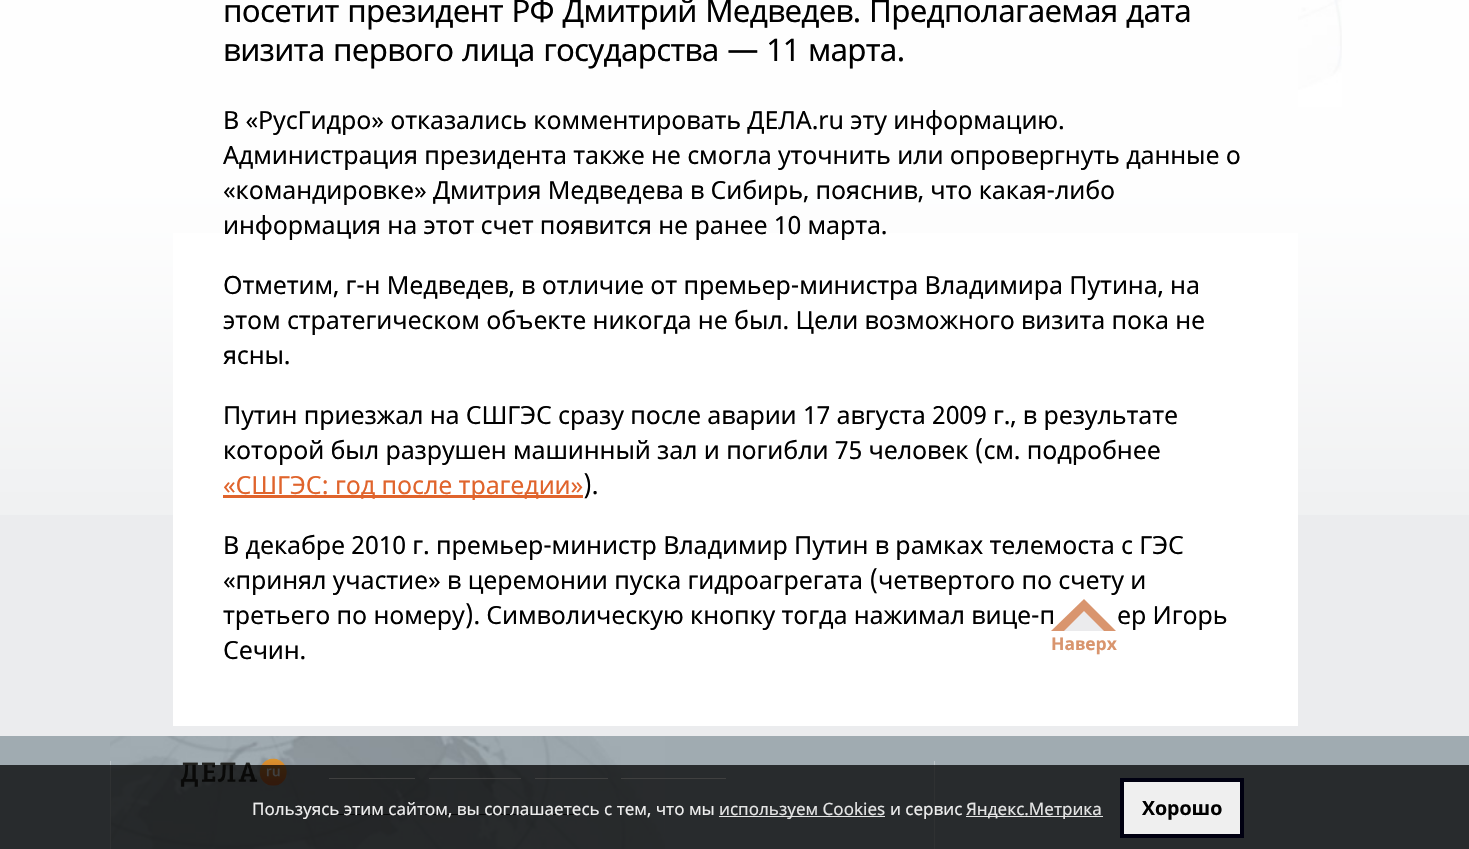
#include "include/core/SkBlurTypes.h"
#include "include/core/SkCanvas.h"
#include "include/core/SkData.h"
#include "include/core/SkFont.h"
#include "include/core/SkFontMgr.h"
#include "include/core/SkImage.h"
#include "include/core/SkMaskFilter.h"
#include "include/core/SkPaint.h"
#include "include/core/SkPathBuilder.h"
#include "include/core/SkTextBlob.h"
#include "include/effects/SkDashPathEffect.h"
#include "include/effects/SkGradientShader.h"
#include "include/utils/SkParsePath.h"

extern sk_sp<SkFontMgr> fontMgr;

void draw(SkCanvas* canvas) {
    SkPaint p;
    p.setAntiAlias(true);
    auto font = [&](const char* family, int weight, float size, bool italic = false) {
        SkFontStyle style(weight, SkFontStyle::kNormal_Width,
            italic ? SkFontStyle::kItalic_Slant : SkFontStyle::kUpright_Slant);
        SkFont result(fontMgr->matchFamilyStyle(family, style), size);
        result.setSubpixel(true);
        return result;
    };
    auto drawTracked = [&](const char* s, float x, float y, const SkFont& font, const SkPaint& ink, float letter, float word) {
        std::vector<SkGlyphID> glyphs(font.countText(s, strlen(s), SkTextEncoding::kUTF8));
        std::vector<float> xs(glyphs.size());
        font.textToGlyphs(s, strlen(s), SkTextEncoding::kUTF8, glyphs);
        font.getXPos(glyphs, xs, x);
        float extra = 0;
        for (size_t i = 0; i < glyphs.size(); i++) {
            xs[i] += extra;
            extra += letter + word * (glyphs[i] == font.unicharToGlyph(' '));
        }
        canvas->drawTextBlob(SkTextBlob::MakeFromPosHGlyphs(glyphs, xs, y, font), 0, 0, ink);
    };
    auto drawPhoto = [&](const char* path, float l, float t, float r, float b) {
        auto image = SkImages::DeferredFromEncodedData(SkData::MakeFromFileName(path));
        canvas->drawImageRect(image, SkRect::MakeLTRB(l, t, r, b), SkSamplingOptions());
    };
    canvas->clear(0xFFEBECEE);
    drawPhoto("media/1.png", 0, 0, 1469, 515);
    drawPhoto("media/2.png", 1298, 0, 1342, 107);
    p.setColor(0xFFFFFFFF);
    canvas->drawRect(SkRect::MakeLTRB(173, 233, 1298, 726), p);
    auto font1 = font("Noto Sans", 400, 31.25f);
    p.setColor(0xFF000000);
    drawTracked("посетит президент РФ Дмитрий Медведев. Предполагаемая дата", 223, 22, font1, p, -0.75f, 1.25f);
    drawTracked("визита первого лица государства — 11 марта.", 223, 61, font1, p, -0.75f, 1.25f);
    auto font2 = font("Noto Sans", 400, 25);
    {
        const struct { const char* s; float x, y; } items[] = {
            {"В «РусГидро» отказались комментировать ДЕЛА.ru эту информацию.", 223, 129},
            {"Администрация президента также не смогла уточнить или опровергнуть данные о", 223, 164},
            {"«командировке» Дмитрия Медведева в Сибирь, пояснив, что какая-либо", 223, 199},
            {"информация на этот счет появится не ранее 10 марта.", 223, 234},
            {"Отметим, г-н Медведев, в отличие от премьер-министра Владимира Путина, на", 223, 294},
            {"этом стратегическом объекте никогда не был. Цели возможного визита пока не", 223, 329},
            {"ясны.", 223, 364},
            {"Путин приезжал на СШГЭС сразу после аварии 17 августа 2009 г., в результате", 223, 424},
            {"которой был разрушен машинный зал и погибли 75 человек (см. подробнее", 223, 459},
        };
        for (auto [s, x, y] : items) {
            drawTracked(s, x, y, font2, p, -0.12f, 0);
        }
    }
    p.setColor(0xFFE0642C);
    canvas->drawRect(SkRect::MakeLTRB(223, 495, 583, 498), p);
    drawTracked("«СШГЭС: год после трагедии»", 223, 494, font2, p, -0.12f, 0);
    p.setColor(0xFF000000);
    {
        const struct { const char* s; float x, y; } items[] = {
            {").", 583, 494},
            {"В декабре 2010 г. премьер-министр Владимир Путин в рамках телемоста с ГЭС", 223, 554},
            {"«принял участие» в церемонии пуска гидроагрегата (четвертого по счету и", 223, 589},
            {"третьего по номеру). Символическую кнопку тогда нажимал вице-п", 223, 624},
            {"ер Игорь", 1117, 624},
            {"Сечин.", 223, 659},
        };
        for (auto [s, x, y] : items) {
            drawTracked(s, x, y, font2, p, -0.12f, 0);
        }
    }
    p.setColor(0xFFA0ABB1);
    canvas->drawRect(SkRect::MakeLTRB(0, 736, 1469, 849), p);
    drawPhoto("media/3.png", 110, 736, 665, 849);
    p.setColor(0xFFBCC4C8);
    canvas->drawRect(SkRect::MakeLTRB(934, 761, 935, 849), p);
    canvas->drawRect(SkRect::MakeLTRB(110, 761, 111, 849), p);
    drawPhoto("media/4.png", 180, 758, 287, 787);
    {
        const struct { float l, t, r, b; SkColor color; } items[] = {
            {329, 778, 415, 779, 0xFFFFFFFF},
            {429, 778, 521, 779, 0xFFFFFFFF},
            {535, 778, 608, 779, 0xFFFFFFFF},
            {621, 778, 726, 779, 0xFFFFFFFF},
            {329, 814, 411, 815, 0xFF202020},
            {425, 814, 575, 815, 0xFF202020},
        };
        for (auto [l, t, r, b, color] : items) {
            p.setColor(color);
            canvas->drawRect(SkRect::MakeLTRB(l, t, r, b), p);
        }
    }
    p.setColor(0xFCD9946C);
    canvas->drawPath(SkPathBuilder().moveTo(1116, 631).lineTo(1051, 631).lineTo(1084, 599).close().detach(), p);
    p.setColor(0xFCEBECEE);
    canvas->drawPath(SkPathBuilder().moveTo(1104, 631).lineTo(1064, 631).lineTo(1084, 611).close().detach(), p);
    auto font3 = font("Noto Sans", 700, 17.5f);
    p.setColor(0xFFD9956E);
    canvas->drawString("Наверх", 1051, 650, font3, p);
    p.setColor(0xBF000000);
    canvas->drawRect(SkRect::MakeLTRB(0, 765, 1469, 849), p);
    auto font4 = font("Noto Sans", 400, 17);
    p.setColor(0xFFEEEEEE);
    canvas->drawString("Пользуясь этим сайтом, вы соглашаетесь с тем, что мы", 252, 815, font4, p);
    p.setColor(0xFFE5E5E5);
    canvas->drawRect(SkRect::MakeLTRB(719, 816, 885, 817), p);
    canvas->drawString("используем Cookies", 719, 815, font4, p);
    p.setColor(0xFFEEEEEE);
    canvas->drawString("и сервис", 890, 815, font4, p);
    p.setColor(0xFFE5E5E5);
    canvas->drawRect(SkRect::MakeLTRB(966, 816, 1103, 817), p);
    canvas->drawString("Яндекс.Метрика", 966, 815, font4, p);
    p.setColor(0xFFEFEFEF);
    canvas->drawRect(SkRect::MakeLTRB(1122, 780, 1242, 836), p);
    p.setStyle(SkPaint::kStroke_Style);
    p.setStrokeWidth(4);
    p.setColor(0xFF000011);
    canvas->drawRect(SkRect::MakeLTRB(1122, 780, 1242, 836), p);
    auto font5 = font("Noto Sans", 700, 19.5f);
    p.setStyle(SkPaint::kFill_Style);
    p.setColor(0xFF000000);
    canvas->drawString("Хорошо", 1142, 815, font5, p);
}
